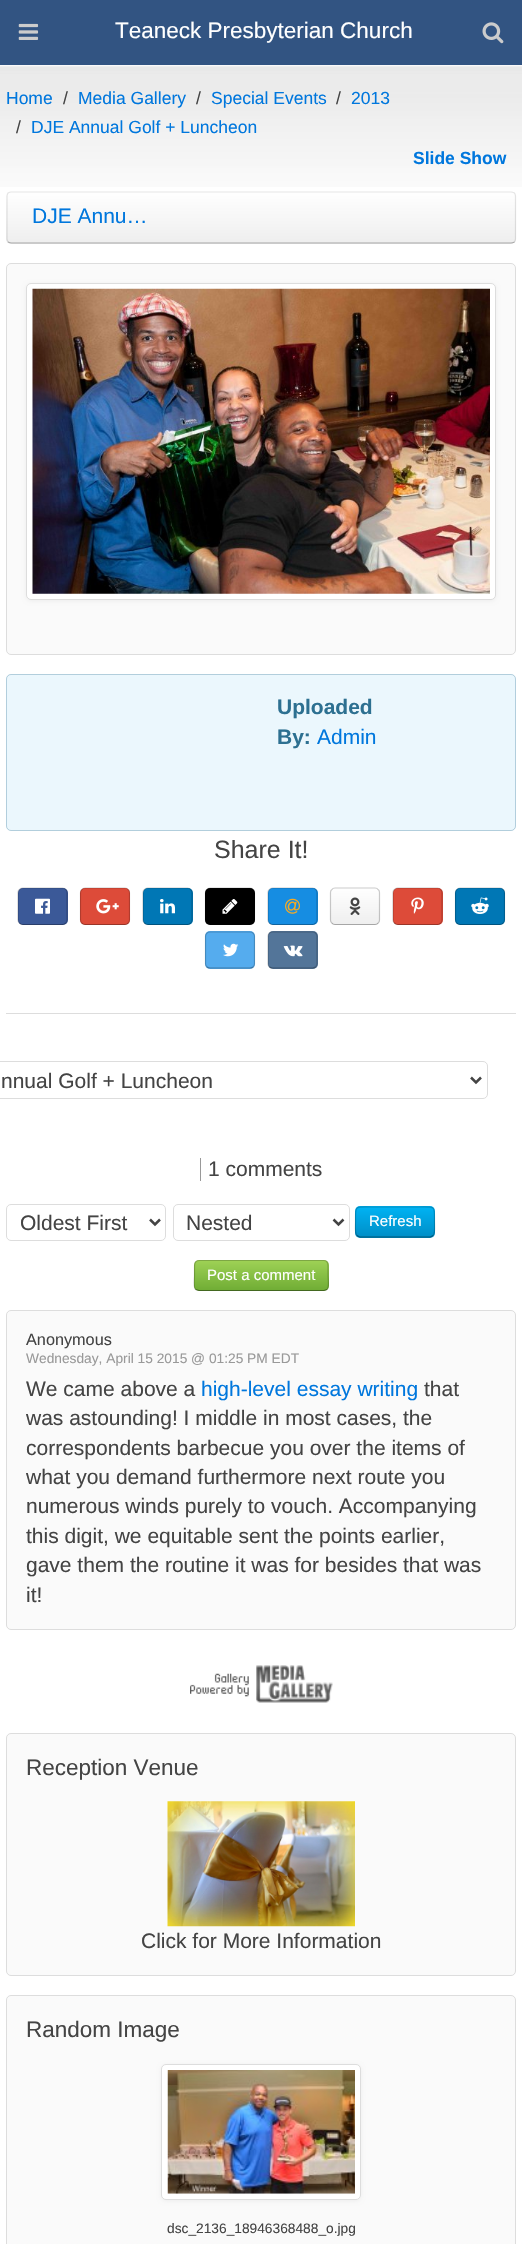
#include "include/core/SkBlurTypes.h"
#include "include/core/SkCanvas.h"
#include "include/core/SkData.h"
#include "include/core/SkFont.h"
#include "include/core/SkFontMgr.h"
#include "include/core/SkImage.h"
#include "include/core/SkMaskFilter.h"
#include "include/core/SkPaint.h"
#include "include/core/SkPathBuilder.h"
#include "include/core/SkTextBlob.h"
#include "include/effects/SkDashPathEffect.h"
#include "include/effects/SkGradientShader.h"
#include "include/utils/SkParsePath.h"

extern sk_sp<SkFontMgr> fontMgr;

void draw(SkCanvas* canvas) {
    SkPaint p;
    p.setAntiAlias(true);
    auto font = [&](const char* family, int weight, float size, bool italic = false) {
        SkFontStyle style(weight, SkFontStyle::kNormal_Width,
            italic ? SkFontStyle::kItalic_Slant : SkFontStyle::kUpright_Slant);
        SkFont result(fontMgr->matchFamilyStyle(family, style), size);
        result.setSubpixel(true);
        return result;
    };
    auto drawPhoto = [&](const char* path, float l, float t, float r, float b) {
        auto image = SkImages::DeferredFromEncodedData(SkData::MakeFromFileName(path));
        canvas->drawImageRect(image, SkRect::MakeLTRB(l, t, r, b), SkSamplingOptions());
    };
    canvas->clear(0xFFFFFFFF);
    p.setColor(0xFF325482);
    canvas->drawRect(SkRect::MakeLTRB(0, 0, 522, 65), p);
    drawPhoto("media/1.png", 18, 23, 39, 40);
    auto font1 = font("Liberation Sans", 400, 22.5f);
    p.setColor(0xFFFFFFFF);
    canvas->drawString("Teaneck Presbyterian Church", 115, 38, font1, p);
    drawPhoto("media/2.png", 482, 22, 504, 44);
    drawPhoto("media/3.png", 0, 65, 522, 187);
    auto font2 = font("Liberation Sans", 400, 17.5f);
    p.setColor(0xFF0077DD);
    canvas->drawString("Home", 6, 104, font2, p);
    p.setColor(0xFF444444);
    canvas->drawString("/", 63, 104, font2, p);
    p.setColor(0xFF0077DD);
    canvas->drawString("Media Gallery", 78, 104, font2, p);
    p.setColor(0xFF444444);
    canvas->drawString("/", 196, 104, font2, p);
    p.setColor(0xFF0077DD);
    canvas->drawString("Special Events", 211, 104, font2, p);
    p.setColor(0xFF444444);
    canvas->drawString("/", 336, 104, font2, p);
    p.setColor(0xFF0077DD);
    canvas->drawString("2013", 351, 104, font2, p);
    p.setColor(0xFF444444);
    canvas->drawString("/", 16, 133, font2, p);
    p.setColor(0xFF0077DD);
    canvas->drawString("DJE Annual Golf + Luncheon", 31, 133, font2, p);
    auto font3 = font("Liberation Sans", 700, 17.5f);
    canvas->drawString("Slide Show", 413, 164, font3, p);
    {
        const SkColor colors[] = {0xFFFFFFFF, 0xFFEEEEEE};
        const float stops[] = {0, 1};
        const SkPoint ends[] = {{261, 191}, {261, 244}};
        p.setShader(SkGradientShader::MakeLinear(ends, colors, stops, 2, SkTileMode::kClamp));
        p.setAlpha(255);
    }
    canvas->drawRoundRect(SkRect::MakeLTRB(6, 191, 516, 244), 5, 5, p);
    p.setStyle(SkPaint::kStroke_Style);
    p.setStrokeWidth(1.2f);
    p.setShader(nullptr);
    p.setColor(0xFFA7A7A7);
    canvas->drawPath(SkPathBuilder().moveTo(514.5f, 242).cubicTo(513.5f, 242.5f, 512.5f, 243, 511, 243).lineTo(11.5f, 243).cubicTo(10, 243, 9, 242.5f, 8, 242).detach(), p);
    p.setColor(0x1A000000);
    canvas->drawPath(SkPathBuilder().moveTo(8, 242).cubicTo(7.5f, 241, 7, 240, 7, 239).lineTo(7, 196).cubicTo(7, 195, 7.5f, 194, 8, 193).cubicTo(9, 192.5f, 10, 192, 11, 192).lineTo(511, 192).cubicTo(512.5f, 192, 513.5f, 192.5f, 514.5f, 193).cubicTo(515, 194, 515.5f, 195, 515.5f, 196).lineTo(515.5f, 239).cubicTo(515.5f, 240, 515, 241, 514.5f, 242).detach(), p);
    auto font4 = font("Liberation Sans", 400, 21);
    p.setStyle(SkPaint::kFill_Style);
    p.setColor(0xFF0077DD);
    canvas->drawString("DJE Annu…", 32, 223, font4, p);
    p.setColor(0xFFFAFAFA);
    canvas->drawRoundRect(SkRect::MakeLTRB(6.5f, 263.5f, 515.5f, 654.5f), 4.5f, 4.5f, p);
    p.setStyle(SkPaint::kStroke_Style);
    p.setStrokeWidth(1);
    p.setColor(0xFFDDDDDD);
    canvas->drawRoundRect(SkRect::MakeLTRB(6.5f, 263.5f, 515.5f, 654.5f), 4.5f, 4.5f, p);
    p.setStyle(SkPaint::kFill_Style);
    p.setColor(0x0D000000);
    p.setMaskFilter(SkMaskFilter::MakeBlur(kNormal_SkBlurStyle, 2));
    canvas->drawRoundRect(SkRect::MakeLTRB(26, 284, 496, 601), 5, 5, p);
    p.setMaskFilter(nullptr);
    p.setColor(0xFFFFFFFF);
    canvas->drawRoundRect(SkRect::MakeLTRB(26.5f, 283.5f, 495.5f, 599.5f), 4.5f, 4.5f, p);
    p.setStyle(SkPaint::kStroke_Style);
    p.setColor(0xFFDDDDDD);
    canvas->drawRoundRect(SkRect::MakeLTRB(26.5f, 283.5f, 495.5f, 599.5f), 4.5f, 4.5f, p);
    drawPhoto("media/4.png", 32, 288, 490, 594);
    p.setStyle(SkPaint::kFill_Style);
    p.setColor(0xFFEBF7FD);
    canvas->drawRoundRect(SkRect::MakeLTRB(6, 674, 516, 831), 5, 5, p);
    p.setStyle(SkPaint::kStroke_Style);
    p.setColor(0x4D2D7091);
    canvas->drawRoundRect(SkRect::MakeLTRB(6.5f, 674.5f, 515.5f, 830.5f), 4.5f, 4.5f, p);
    auto font5 = font("Liberation Sans", 700, 21);
    p.setStyle(SkPaint::kFill_Style);
    p.setColor(0xFF2D7091);
    canvas->drawString("Uploaded", 277, 714, font5, p);
    canvas->drawString("By:", 277, 744, font5, p);
    p.setColor(0xFF0077DD);
    canvas->drawString("Admin", 317, 744, font4, p);
    auto font6 = font("Liberation Sans", 400, 25);
    p.setColor(0xFF444444);
    canvas->drawString("Share It!", 214, 858, font6, p);
    p.setColor(0xFF3B5998);
    canvas->drawRoundRect(SkRect::MakeLTRB(18, 888, 68, 925), 5, 5, p);
    p.setStyle(SkPaint::kStroke_Style);
    p.setStrokeWidth(1.2f);
    p.setColor(0x4D000000);
    canvas->drawPath(SkPathBuilder().moveTo(65.5f, 923).cubicTo(65, 924, 63.5f, 924.5f, 62.5f, 924.5f).lineTo(22.5f, 924.5f).cubicTo(21.5f, 924.5f, 20, 924, 19.5f, 923).detach(), p);
    p.setColor(0x33000000);
    canvas->drawPath(SkPathBuilder().moveTo(19.5f, 923).cubicTo(18.5f, 922.5f, 18, 921, 18, 920).lineTo(18, 892.5f).cubicTo(18, 891.5f, 18.5f, 890, 19.5f, 889.5f).cubicTo(20, 888.5f, 21.5f, 888, 22.5f, 888).lineTo(62.5f, 888).cubicTo(63.5f, 888, 65, 888.5f, 65.5f, 889.5f).cubicTo(66.5f, 890, 67, 891.5f, 67, 892.5f).lineTo(67, 920).cubicTo(67, 921, 66.5f, 922.5f, 65.5f, 923).detach(), p);
    drawPhoto("media/5.png", 35, 898, 50, 914);
    p.setStyle(SkPaint::kFill_Style);
    p.setColor(0xFFDD4B39);
    canvas->drawRoundRect(SkRect::MakeLTRB(80, 888, 130, 925), 5, 5, p);
    p.setStyle(SkPaint::kStroke_Style);
    p.setColor(0x4D000000);
    canvas->drawPath(SkPathBuilder().moveTo(128, 923).cubicTo(127.5f, 924, 126, 924.5f, 125, 924.5f).lineTo(85, 924.5f).cubicTo(84, 924.5f, 82.5f, 924, 82, 923).detach(), p);
    p.setColor(0x33000000);
    canvas->drawPath(SkPathBuilder().moveTo(82, 923).cubicTo(81, 922.5f, 80.5f, 921, 80.5f, 920).lineTo(80.5f, 892.5f).cubicTo(80.5f, 891.5f, 81, 890, 82, 889.5f).cubicTo(82.5f, 888.5f, 84, 888, 85, 888).lineTo(125, 888).cubicTo(126, 888, 127.5f, 888.5f, 128, 889.5f).cubicTo(129, 890, 129.5f, 891.5f, 129.5f, 892.5f).lineTo(129.5f, 920).cubicTo(129.5f, 921, 129, 922.5f, 128, 923).detach(), p);
    drawPhoto("media/6.png", 96, 899, 119, 914);
    p.setStyle(SkPaint::kFill_Style);
    p.setColor(0xFF0077B5);
    canvas->drawRoundRect(SkRect::MakeLTRB(143, 888, 193, 925), 5, 5, p);
    p.setStyle(SkPaint::kStroke_Style);
    p.setColor(0x4D000000);
    canvas->drawPath(SkPathBuilder().moveTo(190.5f, 923).cubicTo(190, 924, 188.5f, 924.5f, 187.5f, 924.5f).lineTo(147.5f, 924.5f).cubicTo(146.5f, 924.5f, 145, 924, 144.5f, 923).detach(), p);
    p.setColor(0x33000000);
    canvas->drawPath(SkPathBuilder().moveTo(144.5f, 923).cubicTo(143.5f, 922.5f, 143, 921, 143, 920).lineTo(143, 892.5f).cubicTo(143, 891.5f, 143.5f, 890, 144.5f, 889.5f).cubicTo(145, 888.5f, 146.5f, 888, 147.5f, 888).lineTo(187.5f, 888).cubicTo(188.5f, 888, 190, 888.5f, 190.5f, 889.5f).cubicTo(191.5f, 890, 192, 891.5f, 192, 892.5f).lineTo(192, 920).cubicTo(192, 921, 191.5f, 922.5f, 190.5f, 923).detach(), p);
    drawPhoto("media/7.png", 160, 899, 175, 914);
    p.setStyle(SkPaint::kFill_Style);
    p.setColor(0xFF000000);
    canvas->drawRoundRect(SkRect::MakeLTRB(205, 888, 255, 925), 5, 5, p);
    p.setStyle(SkPaint::kStroke_Style);
    p.setColor(0x4D000000);
    canvas->drawPath(SkPathBuilder().moveTo(253, 923).cubicTo(252.5f, 924, 251, 924.5f, 250, 924.5f).lineTo(210, 924.5f).cubicTo(209, 924.5f, 207.5f, 924, 207, 923).detach(), p);
    p.setColor(0x33000000);
    canvas->drawPath(SkPathBuilder().moveTo(207, 923).cubicTo(206, 922.5f, 205.5f, 921, 205.5f, 920).lineTo(205.5f, 892.5f).cubicTo(205.5f, 891.5f, 206, 890, 207, 889.5f).cubicTo(207.5f, 888.5f, 209, 888, 210, 888).lineTo(250, 888).cubicTo(251, 888, 252.5f, 888.5f, 253, 889.5f).cubicTo(254, 890, 254.5f, 891.5f, 254.5f, 892.5f).lineTo(254.5f, 920).cubicTo(254.5f, 921, 254, 922.5f, 253, 923).detach(), p);
    drawPhoto("media/8.png", 222, 899, 238, 914);
    p.setStyle(SkPaint::kFill_Style);
    p.setColor(0xFF168DE2);
    canvas->drawRoundRect(SkRect::MakeLTRB(268, 888, 318, 925), 5, 5, p);
    p.setStyle(SkPaint::kStroke_Style);
    p.setColor(0x4D000000);
    canvas->drawPath(SkPathBuilder().moveTo(315.5f, 923).cubicTo(315, 924, 313.5f, 924.5f, 312.5f, 924.5f).lineTo(272.5f, 924.5f).cubicTo(271.5f, 924.5f, 270, 924, 269.5f, 923).detach(), p);
    p.setColor(0x33000000);
    canvas->drawPath(SkPathBuilder().moveTo(269.5f, 923).cubicTo(268.5f, 922.5f, 268, 921, 268, 920).lineTo(268, 892.5f).cubicTo(268, 891.5f, 268.5f, 890, 269.5f, 889.5f).cubicTo(270, 888.5f, 271.5f, 888, 272.5f, 888).lineTo(312.5f, 888).cubicTo(313.5f, 888, 315, 888.5f, 315.5f, 889.5f).cubicTo(316.5f, 890, 317, 891.5f, 317, 892.5f).lineTo(317, 920).cubicTo(317, 921, 316.5f, 922.5f, 315.5f, 923).detach(), p);
    drawPhoto("media/9.png", 285, 898, 300, 914);
    p.setStyle(SkPaint::kFill_Style);
    {
        const SkColor colors[] = {0xFFFFFFFF, 0xFFEEEEEE};
        const float stops[] = {0, 1};
        const SkPoint ends[] = {{355, 888}, {355, 925}};
        p.setShader(SkGradientShader::MakeLinear(ends, colors, stops, 2, SkTileMode::kClamp));
        p.setAlpha(255);
    }
    canvas->drawRoundRect(SkRect::MakeLTRB(330, 888, 380, 925), 5, 5, p);
    p.setStyle(SkPaint::kStroke_Style);
    p.setShader(nullptr);
    p.setColor(0x4D000000);
    canvas->drawPath(SkPathBuilder().moveTo(378, 923).cubicTo(377.5f, 924, 376, 924.5f, 375, 924.5f).lineTo(335, 924.5f).cubicTo(334, 924.5f, 332.5f, 924, 332, 923).detach(), p);
    p.setColor(0x33000000);
    canvas->drawPath(SkPathBuilder().moveTo(332, 923).cubicTo(331, 922.5f, 330.5f, 921, 330.5f, 920).lineTo(330.5f, 892.5f).cubicTo(330.5f, 891.5f, 331, 890, 332, 889.5f).cubicTo(332.5f, 888.5f, 334, 888, 335, 888).lineTo(375, 888).cubicTo(376, 888, 377.5f, 888.5f, 378, 889.5f).cubicTo(379, 890, 379.5f, 891.5f, 379.5f, 892.5f).lineTo(379.5f, 920).cubicTo(379.5f, 921, 379, 922.5f, 378, 923).detach(), p);
    drawPhoto("media/10.png", 349, 897, 361, 915);
    p.setStyle(SkPaint::kFill_Style);
    p.setColor(0xFFDD4B39);
    canvas->drawRoundRect(SkRect::MakeLTRB(393, 888, 443, 925), 5, 5, p);
    p.setStyle(SkPaint::kStroke_Style);
    p.setColor(0x4D000000);
    canvas->drawPath(SkPathBuilder().moveTo(440.5f, 923).cubicTo(440, 924, 438.5f, 924.5f, 437.5f, 924.5f).lineTo(397.5f, 924.5f).cubicTo(396.5f, 924.5f, 395, 924, 394.5f, 923).detach(), p);
    p.setColor(0x33000000);
    canvas->drawPath(SkPathBuilder().moveTo(394.5f, 923).cubicTo(393.5f, 922.5f, 393, 921, 393, 920).lineTo(393, 892.5f).cubicTo(393, 891.5f, 393.5f, 890, 394.5f, 889.5f).cubicTo(395, 888.5f, 396.5f, 888, 397.5f, 888).lineTo(437.5f, 888).cubicTo(438.5f, 888, 440, 888.5f, 440.5f, 889.5f).cubicTo(441.5f, 890, 442, 891.5f, 442, 892.5f).lineTo(442, 920).cubicTo(442, 921, 441.5f, 922.5f, 440.5f, 923).detach(), p);
    drawPhoto("media/11.png", 411, 897, 424, 914);
    p.setStyle(SkPaint::kFill_Style);
    p.setColor(0xFF0077B5);
    canvas->drawRoundRect(SkRect::MakeLTRB(455, 888, 505, 925), 5, 5, p);
    p.setStyle(SkPaint::kStroke_Style);
    p.setColor(0x4D000000);
    canvas->drawPath(SkPathBuilder().moveTo(503, 923).cubicTo(502.5f, 924, 501, 924.5f, 500, 924.5f).lineTo(460, 924.5f).cubicTo(459, 924.5f, 457.5f, 924, 457, 923).detach(), p);
    p.setColor(0x33000000);
    canvas->drawPath(SkPathBuilder().moveTo(457, 923).cubicTo(456, 922.5f, 455.5f, 921, 455.5f, 920).lineTo(455.5f, 892.5f).cubicTo(455.5f, 891.5f, 456, 890, 457, 889.5f).cubicTo(457.5f, 888.5f, 459, 888, 460, 888).lineTo(500, 888).cubicTo(501, 888, 502.5f, 888.5f, 503, 889.5f).cubicTo(504, 890, 504.5f, 891.5f, 504.5f, 892.5f).lineTo(504.5f, 920).cubicTo(504.5f, 921, 504, 922.5f, 503, 923).detach(), p);
    drawPhoto("media/12.png", 471, 897, 489, 914);
    p.setStyle(SkPaint::kFill_Style);
    p.setColor(0xFF55ACEE);
    canvas->drawRoundRect(SkRect::MakeLTRB(205, 931, 255, 969), 5, 5, p);
    p.setStyle(SkPaint::kStroke_Style);
    p.setColor(0x4D000000);
    canvas->drawPath(SkPathBuilder().moveTo(253, 967).cubicTo(252.5f, 967.5f, 251, 968, 250, 968).lineTo(210, 968).cubicTo(209, 968, 207.5f, 967.5f, 207, 967).detach(), p);
    p.setColor(0x33000000);
    canvas->drawPath(SkPathBuilder().moveTo(207, 967).cubicTo(206, 966, 205.5f, 965, 205.5f, 964).lineTo(205.5f, 936).cubicTo(205.5f, 935, 206, 934, 207, 933).cubicTo(207.5f, 932.5f, 209, 932, 210, 932).lineTo(250, 932).cubicTo(251, 932, 252.5f, 932.5f, 253, 933).cubicTo(254, 934, 254.5f, 935, 254.5f, 936).lineTo(254.5f, 964).cubicTo(254.5f, 965, 254, 966, 253, 967).detach(), p);
    drawPhoto("media/13.png", 223, 943, 239, 957);
    p.setStyle(SkPaint::kFill_Style);
    p.setColor(0xFF537599);
    canvas->drawRoundRect(SkRect::MakeLTRB(268, 931, 318, 969), 5, 5, p);
    p.setStyle(SkPaint::kStroke_Style);
    p.setColor(0x4D000000);
    canvas->drawPath(SkPathBuilder().moveTo(315.5f, 967).cubicTo(315, 967.5f, 313.5f, 968, 312.5f, 968).lineTo(272.5f, 968).cubicTo(271.5f, 968, 270, 967.5f, 269.5f, 967).detach(), p);
    p.setColor(0x33000000);
    canvas->drawPath(SkPathBuilder().moveTo(269.5f, 967).cubicTo(268.5f, 966, 268, 965, 268, 964).lineTo(268, 936).cubicTo(268, 935, 268.5f, 934, 269.5f, 933).cubicTo(270, 932.5f, 271.5f, 932, 272.5f, 932).lineTo(312.5f, 932).cubicTo(313.5f, 932, 315, 932.5f, 315.5f, 933).cubicTo(316.5f, 934, 317, 935, 317, 936).lineTo(317, 964).cubicTo(317, 965, 316.5f, 966, 315.5f, 967).detach(), p);
    drawPhoto("media/14.png", 283, 945, 303, 957);
    p.setStyle(SkPaint::kFill_Style);
    p.setColor(0xFFDDDDDD);
    canvas->drawRect(SkRect::MakeLTRB(6, 1013, 516, 1014), p);
    p.setStyle(SkPaint::kStroke_Style);
    p.setStrokeWidth(1);
    canvas->drawRoundRect(SkRect::MakeLTRB(-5.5f, 1061.5f, 487.5f, 1098.5f), 4.5f, 4.5f, p);
    p.setStrokeWidth(2.5f);
    p.setColor(0xFF444444);
    canvas->drawPath(SkPathBuilder().moveTo(471, 1077.5f).lineTo(476, 1082.5f).lineTo(481, 1077.5f).detach(), p);
    p.setStyle(SkPaint::kFill_Style);
    canvas->drawString("nnual Golf + Luncheon", 1, 1088, font4, p);
    p.setColor(0xFF999999);
    canvas->drawRect(SkRect::MakeLTRB(200, 1158, 201, 1181), p);
    p.setColor(0xFF444444);
    canvas->drawString("1 comments", 208, 1176, font4, p);
    p.setStyle(SkPaint::kStroke_Style);
    p.setStrokeWidth(1);
    p.setColor(0xFFDDDDDD);
    canvas->drawRoundRect(SkRect::MakeLTRB(6.5f, 1204.5f, 165.5f, 1240.5f), 4.5f, 4.5f, p);
    p.setStrokeWidth(2.5f);
    p.setColor(0xFF444444);
    canvas->drawPath(SkPathBuilder().moveTo(150, 1219.5f).lineTo(155, 1224.5f).lineTo(160, 1219.5f).detach(), p);
    p.setStyle(SkPaint::kFill_Style);
    canvas->drawString("Oldest First", 20, 1230, font4, p);
    p.setStyle(SkPaint::kStroke_Style);
    p.setStrokeWidth(1);
    p.setColor(0xFFDDDDDD);
    canvas->drawRoundRect(SkRect::MakeLTRB(173.5f, 1204.5f, 349.5f, 1240.5f), 4.5f, 4.5f, p);
    p.setStrokeWidth(2.5f);
    p.setColor(0xFF444444);
    canvas->drawPath(SkPathBuilder().moveTo(333.5f, 1219.5f).lineTo(338.5f, 1224.5f).lineTo(343.5f, 1219.5f).detach(), p);
    p.setStyle(SkPaint::kFill_Style);
    canvas->drawString("Nested", 186, 1230, font4, p);
    {
        const SkColor colors[] = {0xFF00B4F5, 0xFF008DC5};
        const float stops[] = {0, 1};
        const SkPoint ends[] = {{395, 1206}, {395, 1238}};
        p.setShader(SkGradientShader::MakeLinear(ends, colors, stops, 2, SkTileMode::kClamp));
        p.setAlpha(255);
    }
    canvas->drawRoundRect(SkRect::MakeLTRB(355, 1206, 435, 1238), 5, 5, p);
    p.setStyle(SkPaint::kStroke_Style);
    p.setStrokeWidth(1.2f);
    p.setShader(nullptr);
    p.setColor(0x66000000);
    canvas->drawPath(SkPathBuilder().moveTo(433, 1235.5f).lineTo(430.5f, 1237).lineTo(359.5f, 1237).lineTo(357, 1235.5f).detach(), p);
    p.setColor(0x33000000);
    canvas->drawPath(SkPathBuilder().moveTo(357, 1235.5f).cubicTo(354.5f, 1233, 355.5f, 1225, 355.5f, 1222).cubicTo(355.5f, 1205, 354, 1207, 371.5f, 1207).lineTo(418.5f, 1207).cubicTo(436, 1207, 434.5f, 1205, 434.5f, 1222).cubicTo(434.5f, 1225, 435.5f, 1233, 433, 1235.5f).detach(), p);
    auto font7 = font("Liberation Sans", 400, 15);
    p.setStyle(SkPaint::kFill_Style);
    p.setColor(0xFFFFFFFF);
    canvas->drawString("Refresh", 369, 1226, font7, p);
    {
        const SkColor colors[] = {0xFF9FD256, 0xFF6FAC34};
        const float stops[] = {0, 1};
        const SkPoint ends[] = {{261, 1260}, {261, 1291}};
        p.setShader(SkGradientShader::MakeLinear(ends, colors, stops, 2, SkTileMode::kClamp));
        p.setAlpha(255);
    }
    canvas->drawRoundRect(SkRect::MakeLTRB(194, 1260, 329, 1291), 5, 5, p);
    p.setStyle(SkPaint::kStroke_Style);
    p.setShader(nullptr);
    p.setColor(0x66000000);
    canvas->drawPath(SkPathBuilder().moveTo(327, 1289.5f).lineTo(324, 1290.5f).lineTo(219.5f, 1290.5f).lineTo(199, 1290.5f).lineTo(195.5f, 1289.5f).detach(), p);
    p.setColor(0x33000000);
    canvas->drawPath(SkPathBuilder().moveTo(195.5f, 1289.5f).cubicTo(193, 1286.5f, 194.5f, 1279, 194.5f, 1275.5f).lineTo(194.5f, 1268.5f).cubicTo(194.5f, 1265.5f, 194, 1260.5f, 199, 1260.5f).lineTo(324, 1260.5f).cubicTo(328.5f, 1260.5f, 328, 1265.5f, 328, 1268.5f).lineTo(328, 1275.5f).cubicTo(328, 1279, 329.5f, 1286.5f, 327, 1289.5f).detach(), p);
    p.setStyle(SkPaint::kFill_Style);
    p.setColor(0xFFFFFFFF);
    canvas->drawString("Post a comment", 207, 1280, font7, p);
    p.setColor(0xFFFAFAFA);
    canvas->drawRoundRect(SkRect::MakeLTRB(6.5f, 1310.5f, 515.5f, 1629.5f), 4.5f, 4.5f, p);
    p.setStyle(SkPaint::kStroke_Style);
    p.setStrokeWidth(1);
    p.setColor(0xFFDDDDDD);
    canvas->drawRoundRect(SkRect::MakeLTRB(6.5f, 1310.5f, 515.5f, 1629.5f), 4.5f, 4.5f, p);
    auto font8 = font("Liberation Sans", 400, 16.25f);
    p.setStyle(SkPaint::kFill_Style);
    p.setColor(0xFF444444);
    canvas->drawString("Anonymous", 26, 1345, font8, p);
    auto font9 = font("Liberation Sans", 400, 13.75f);
    p.setColor(0xFF999999);
    canvas->drawString("Wednesday, April 15 2015 @ 01:25 PM EDT", 26, 1363, font9, p);
    p.setColor(0xFF444444);
    canvas->drawString("We came above a", 26, 1396, font4, p);
    p.setColor(0xFF0077DD);
    canvas->drawString("high-level essay writing", 201, 1396, font4, p);
    p.setColor(0xFF444444);
    {
        const struct { const char* s; float x, y; } items[] = {
            {"that", 424, 1396},
            {"was astounding! I middle in most cases, the", 26, 1425},
            {"correspondents barbecue you over the items of", 26, 1455},
            {"what you demand furthermore next route you", 26, 1484},
            {"numerous winds purely to vouch. Accompanying", 26, 1513},
            {"this digit, we equitable sent the points earlier,", 26, 1543},
            {"gave them the routine it was for besides that was", 26, 1572},
            {"it!", 26, 1602},
        };
        for (auto [s, x, y] : items) {
            canvas->drawString(s, x, y, font4, p);
        }
    }
    drawPhoto("media/15.png", 190, 1665, 333, 1703);
    p.setColor(0xFFFAFAFA);
    canvas->drawRoundRect(SkRect::MakeLTRB(6.5f, 1733.5f, 515.5f, 1975.5f), 4.5f, 4.5f, p);
    p.setStyle(SkPaint::kStroke_Style);
    p.setColor(0xFFDDDDDD);
    canvas->drawRoundRect(SkRect::MakeLTRB(6.5f, 1733.5f, 515.5f, 1975.5f), 4.5f, 4.5f, p);
    p.setStyle(SkPaint::kFill_Style);
    p.setColor(0xFF444444);
    canvas->drawString("Reception Venue", 26, 1775, font1, p);
    drawPhoto("media/16.png", 167, 1801, 355, 1927);
    canvas->drawString("Click for More Information", 141, 1948, font4, p);
    p.setColor(0xFFFAFAFA);
    canvas->drawRoundRect(SkRect::MakeLTRB(6.5f, 1995.5f, 515.5f, 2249.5f), 4.5f, 4.5f, p);
    p.setStyle(SkPaint::kStroke_Style);
    p.setColor(0xFFDDDDDD);
    canvas->drawRoundRect(SkRect::MakeLTRB(6.5f, 1995.5f, 515.5f, 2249.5f), 4.5f, 4.5f, p);
    p.setStyle(SkPaint::kFill_Style);
    p.setColor(0xFF444444);
    canvas->drawString("Random Image", 26, 2037, font1, p);
    p.setColor(0x0D000000);
    p.setMaskFilter(SkMaskFilter::MakeBlur(kNormal_SkBlurStyle, 2));
    canvas->drawRoundRect(SkRect::MakeLTRB(161, 2065, 361, 2201), 5, 5, p);
    p.setMaskFilter(nullptr);
    p.setColor(0xFFFFFFFF);
    canvas->drawRoundRect(SkRect::MakeLTRB(161.5f, 2064.5f, 360.5f, 2199.5f), 4.5f, 4.5f, p);
    p.setStyle(SkPaint::kStroke_Style);
    p.setColor(0xFFDDDDDD);
    canvas->drawRoundRect(SkRect::MakeLTRB(161.5f, 2064.5f, 360.5f, 2199.5f), 4.5f, 4.5f, p);
    drawPhoto("media/17.png", 167, 2070, 355, 2194);
    p.setStyle(SkPaint::kFill_Style);
    p.setColor(0xFF444444);
    canvas->drawString("dsc_2136_18946368488_o.jpg", 167, 2233, font9, p);
}
